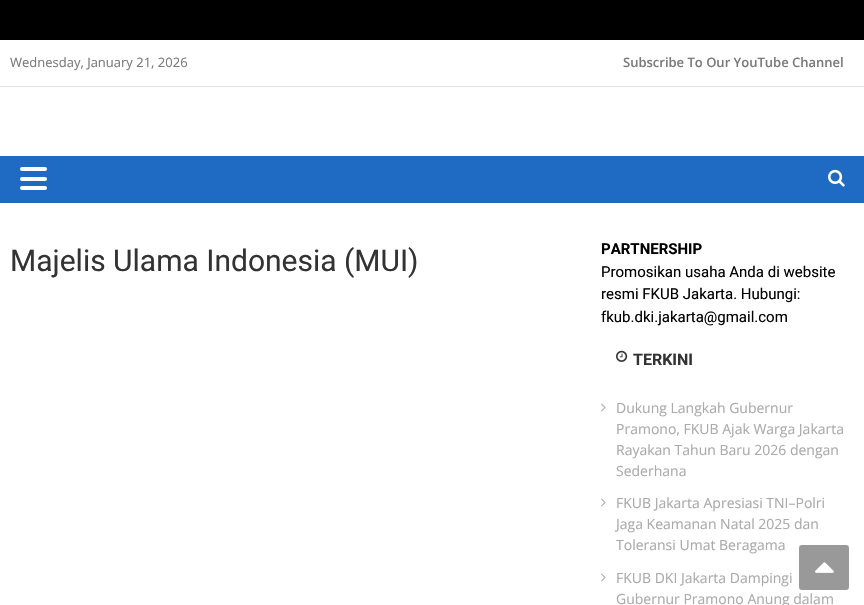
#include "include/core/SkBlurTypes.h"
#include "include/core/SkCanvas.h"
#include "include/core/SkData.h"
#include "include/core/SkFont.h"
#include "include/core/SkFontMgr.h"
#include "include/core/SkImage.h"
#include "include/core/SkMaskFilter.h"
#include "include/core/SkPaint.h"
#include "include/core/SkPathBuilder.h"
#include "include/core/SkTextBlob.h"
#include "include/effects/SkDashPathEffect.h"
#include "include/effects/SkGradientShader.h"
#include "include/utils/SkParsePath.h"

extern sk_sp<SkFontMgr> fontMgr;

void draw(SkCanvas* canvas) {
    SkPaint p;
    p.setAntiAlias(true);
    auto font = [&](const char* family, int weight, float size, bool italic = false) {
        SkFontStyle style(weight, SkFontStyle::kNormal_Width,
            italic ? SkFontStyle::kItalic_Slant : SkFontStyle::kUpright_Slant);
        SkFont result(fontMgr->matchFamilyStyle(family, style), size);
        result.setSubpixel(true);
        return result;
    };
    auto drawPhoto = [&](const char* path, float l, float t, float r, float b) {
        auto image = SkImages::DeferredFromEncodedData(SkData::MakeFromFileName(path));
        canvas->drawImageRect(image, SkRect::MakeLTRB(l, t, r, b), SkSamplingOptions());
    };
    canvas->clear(0xFFFFFFFF);
    p.setColor(0xFF000000);
    canvas->drawRect(SkRect::MakeLTRB(0, 0, 864, 40), p);
    p.setColor(0xFFE2E2E2);
    canvas->drawRect(SkRect::MakeLTRB(0, 86, 864, 87), p);
    auto font1 = font("Open Sans", 400, 13);
    p.setColor(0xFF7A7A79);
    canvas->drawString("Wednesday, January 21, 2026", 10, 67, font1, p);
    auto font2 = font("Open Sans", 600, 13);
    canvas->drawString("Subscribe To Our YouTube Channel", 623, 67, font2, p);
    p.setColor(0xFF1F6BC4);
    canvas->drawRect(SkRect::MakeLTRB(0, 156, 864, 203), p);
    p.setColor(0xFFFFFFFF);
    canvas->drawRoundRect(SkRect::MakeLTRB(20, 167, 47, 171), 2, 2, p);
    canvas->drawRoundRect(SkRect::MakeLTRB(20, 177, 47, 181), 2, 2, p);
    canvas->drawRoundRect(SkRect::MakeLTRB(20, 186, 47, 190), 2, 2, p);
    drawPhoto("media/1.png", 828, 169, 845, 187);
    auto font3 = font("Roboto", 400, 30);
    p.setColor(0xFF333333);
    canvas->drawString("Majelis Ulama Indonesia (MUI)", 10, 271, font3, p);
    auto font4 = font("Roboto", 700, 15);
    p.setColor(0xFF000000);
    canvas->drawString("PARTNERSHIP", 601, 254, font4, p);
    auto font5 = font("Roboto", 400, 15);
    {
        const struct { const char* s; float x, y; } items[] = {
            {"Promosikan usaha Anda di website", 601, 277},
            {"resmi FKUB Jakarta. Hubungi:", 601, 299},
            {"fkub.dki.jakarta@gmail.com", 601, 322},
        };
        for (auto [s, x, y] : items) {
            canvas->drawString(s, x, y, font5, p);
        }
    }
    drawPhoto("media/2.png", 616, 350, 628, 362);
    auto font6 = font("Roboto", 700, 16);
    p.setColor(0xFF333333);
    canvas->drawString("TERKINI", 633, 365, font6, p);
    drawPhoto("media/3.png", 601, 403, 606, 412);
    auto font7 = font("Open Sans", 400, 14);
    p.setColor(0xFFAAAAAA);
    {
        const struct { const char* s; float x, y; } items[] = {
            {"Dukung Langkah Gubernur", 616, 413},
            {"Pramono, FKUB Ajak Warga Jakarta", 616, 434},
            {"Rayakan Tahun Baru 2026 dengan", 616, 455},
            {"Sederhana", 616, 476},
        };
        for (auto [s, x, y] : items) {
            canvas->drawString(s, x, y, font7, p);
        }
    }
    drawPhoto("media/3.png", 601, 498, 606, 507);
    {
        const struct { const char* s; float x, y; } items[] = {
            {"FKUB Jakarta Apresiasi TNI–Polri", 616, 508},
            {"Jaga Keamanan Natal 2025 dan", 616, 529},
            {"Toleransi Umat Beragama", 616, 550},
        };
        for (auto [s, x, y] : items) {
            canvas->drawString(s, x, y, font7, p);
        }
    }
    drawPhoto("media/3.png", 601, 573, 606, 582);
    canvas->drawString("FKUB DKI Jakarta Dampingi", 616, 583, font7, p);
    canvas->drawString("Gubernur Pramono Anung dalam", 616, 604, font7, p);
    p.setColor(0xFF999999);
    canvas->drawRoundRect(SkRect::MakeLTRB(799, 545, 849, 590), 3, 3, p);
    drawPhoto("media/4.png", 815, 562, 834, 573);
}
